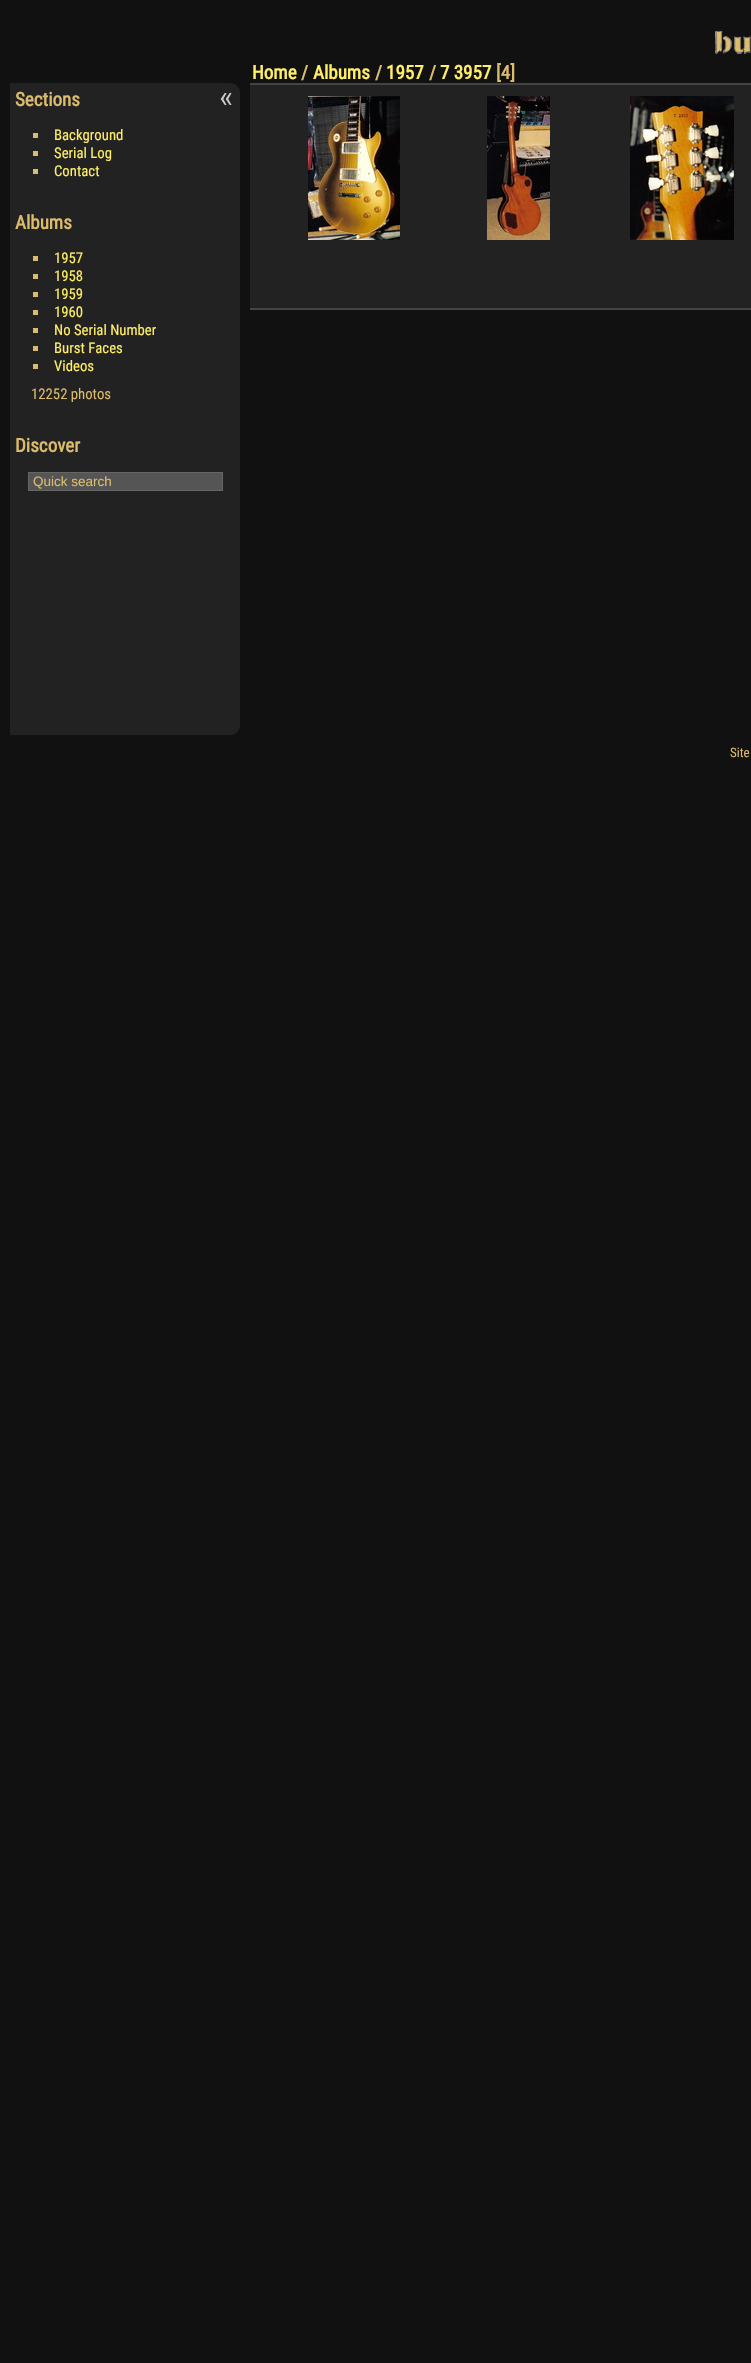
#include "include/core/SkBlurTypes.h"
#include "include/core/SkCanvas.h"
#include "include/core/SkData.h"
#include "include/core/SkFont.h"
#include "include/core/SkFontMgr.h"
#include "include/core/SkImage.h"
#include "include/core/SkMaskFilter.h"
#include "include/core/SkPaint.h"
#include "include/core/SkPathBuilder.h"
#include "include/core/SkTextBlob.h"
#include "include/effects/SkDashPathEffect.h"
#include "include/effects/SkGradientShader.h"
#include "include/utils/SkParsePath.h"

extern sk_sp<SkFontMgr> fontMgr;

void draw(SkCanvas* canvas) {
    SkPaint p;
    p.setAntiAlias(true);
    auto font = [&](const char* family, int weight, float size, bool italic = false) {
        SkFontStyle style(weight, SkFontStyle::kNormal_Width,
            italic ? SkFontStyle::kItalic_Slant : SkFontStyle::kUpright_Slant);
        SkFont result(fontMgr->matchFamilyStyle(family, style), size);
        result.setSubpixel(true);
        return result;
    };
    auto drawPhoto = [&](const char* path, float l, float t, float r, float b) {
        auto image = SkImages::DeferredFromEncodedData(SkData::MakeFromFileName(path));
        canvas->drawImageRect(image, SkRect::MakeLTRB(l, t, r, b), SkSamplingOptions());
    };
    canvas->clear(0xFF111111);
    drawPhoto("media/1.png", 715, 30, 751, 54);
    {
        const struct { float l, t, r, b; SkColor color; } items[] = {
            {250, 85, 751, 308, 0xFF222222},
            {250, 308, 751, 310, 0xFF444444},
            {250, 83, 751, 85, 0xFF444444},
        };
        for (auto [l, t, r, b, color] : items) {
            p.setColor(color);
            canvas->drawRect(SkRect::MakeLTRB(l, t, r, b), p);
        }
    }
    auto font1 = font("Roboto Condensed", 700, 19);
    p.setColor(0xFFFFEE66);
    canvas->drawString("Home", 252, 79, font1, p);
    p.setColor(0xFFDCBC6C);
    canvas->drawString("/", 301, 79, font1, p);
    p.setColor(0xFFFFEE66);
    canvas->drawString("Albums", 313, 79, font1, p);
    p.setColor(0xFFDCBC6C);
    canvas->drawString("/", 375, 79, font1, p);
    p.setColor(0xFFFFEE66);
    canvas->drawString("1957", 386, 79, font1, p);
    p.setColor(0xFFDCBC6C);
    canvas->drawString("/", 429, 79, font1, p);
    p.setColor(0xFFFFEE66);
    canvas->drawString("7 3957", 440, 79, font1, p);
    p.setColor(0xFFDCBC6C);
    canvas->drawString("[4]", 496, 79, font1, p);
    drawPhoto("media/2.png", 308, 96, 400, 240);
    drawPhoto("media/3.png", 487, 96, 550, 240);
    drawPhoto("media/4.png", 630, 96, 734, 240);
    p.setColor(0xFF222222);
    canvas->drawPath(SkPathBuilder().moveTo(10, 83).lineTo(230, 83).cubicTo(235.5f, 83, 240, 87.5f, 240, 93).lineTo(240, 725).cubicTo(240, 730.5f, 235.5f, 735, 230, 735).lineTo(10, 735).close().detach(), p);
    p.setColor(0xFFDCBC6C);
    canvas->drawString("Sections", 15, 106, font1, p);
    canvas->drawRect(SkRect::MakeLTRB(33, 133, 38, 138), p);
    auto font2 = font("Roboto Condensed", 400, 14.75f);
    p.setColor(0xFFFFEE66);
    canvas->drawString("Background", 54, 140, font2, p);
    p.setColor(0xFFDCBC6C);
    canvas->drawRect(SkRect::MakeLTRB(33, 151, 38, 156), p);
    p.setColor(0xFFFFEE66);
    canvas->drawString("Serial Log", 54, 158, font2, p);
    p.setColor(0xFFDCBC6C);
    canvas->drawRect(SkRect::MakeLTRB(33, 169, 38, 174), p);
    p.setColor(0xFFFFEE66);
    canvas->drawString("Contact", 54, 176, font2, p);
    p.setColor(0xFFDCBC6C);
    canvas->drawString("Albums", 15, 229, font1, p);
    canvas->drawRect(SkRect::MakeLTRB(33, 256, 38, 261), p);
    p.setColor(0xFFFFEE66);
    canvas->drawString("1957", 54, 263, font2, p);
    p.setColor(0xFFDCBC6C);
    canvas->drawRect(SkRect::MakeLTRB(33, 274, 38, 279), p);
    p.setColor(0xFFFFEE66);
    canvas->drawString("1958", 54, 281, font2, p);
    p.setColor(0xFFDCBC6C);
    canvas->drawRect(SkRect::MakeLTRB(33, 292, 38, 297), p);
    p.setColor(0xFFFFEE66);
    canvas->drawString("1959", 54, 299, font2, p);
    p.setColor(0xFFDCBC6C);
    canvas->drawRect(SkRect::MakeLTRB(33, 310, 38, 315), p);
    p.setColor(0xFFFFEE66);
    canvas->drawString("1960", 54, 317, font2, p);
    p.setColor(0xFFDCBC6C);
    canvas->drawRect(SkRect::MakeLTRB(33, 328, 38, 333), p);
    p.setColor(0xFFFFEE66);
    canvas->drawString("No Serial Number", 54, 335, font2, p);
    p.setColor(0xFFDCBC6C);
    canvas->drawRect(SkRect::MakeLTRB(33, 346, 38, 351), p);
    p.setColor(0xFFFFEE66);
    canvas->drawString("Burst Faces", 54, 353, font2, p);
    p.setColor(0xFFDCBC6C);
    canvas->drawRect(SkRect::MakeLTRB(33, 364, 38, 369), p);
    p.setColor(0xFFFFEE66);
    canvas->drawString("Videos", 54, 371, font2, p);
    p.setColor(0xFFDCBC6C);
    canvas->drawString("12252 photos", 31, 399, font2, p);
    canvas->drawString("Discover", 15, 452, font1, p);
    p.setColor(0xFF555555);
    canvas->drawRect(SkRect::MakeLTRB(28.5f, 472.5f, 222.5f, 490.5f), p);
    p.setStyle(SkPaint::kStroke_Style);
    p.setStrokeWidth(1);
    p.setColor(0xFF666666);
    canvas->drawRect(SkRect::MakeLTRB(28.5f, 472.5f, 222.5f, 490.5f), p);
    auto font3 = font("Liberation Sans", 400, 13.5f);
    p.setStyle(SkPaint::kFill_Style);
    p.setColor(0xFFDCBC6C);
    canvas->drawString("Quick search", 33, 486, font3, p);
    drawPhoto("media/5.png", 220, 93, 232, 105);
    auto font4 = font("Roboto Condensed", 400, 13);
    canvas->drawString("Site", 730, 757, font4, p);
}
